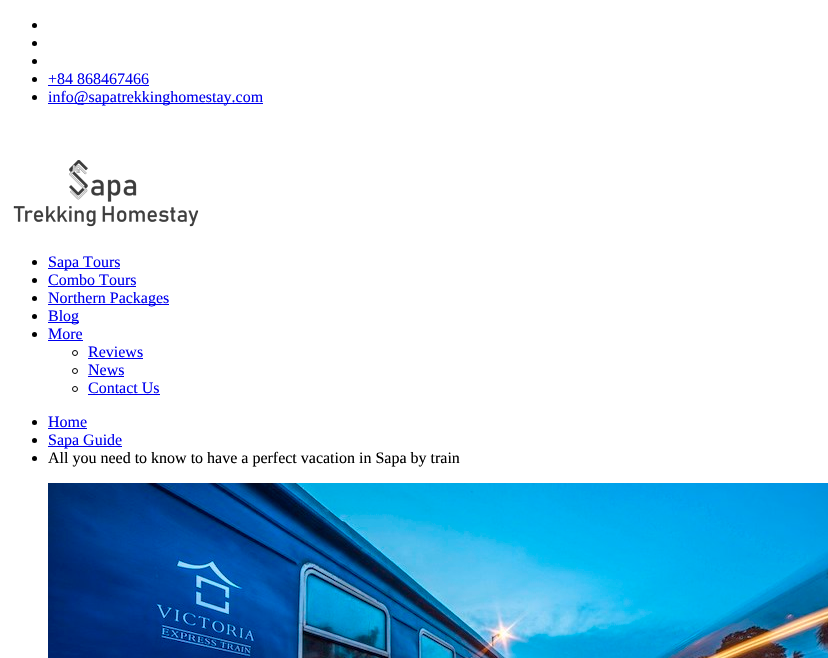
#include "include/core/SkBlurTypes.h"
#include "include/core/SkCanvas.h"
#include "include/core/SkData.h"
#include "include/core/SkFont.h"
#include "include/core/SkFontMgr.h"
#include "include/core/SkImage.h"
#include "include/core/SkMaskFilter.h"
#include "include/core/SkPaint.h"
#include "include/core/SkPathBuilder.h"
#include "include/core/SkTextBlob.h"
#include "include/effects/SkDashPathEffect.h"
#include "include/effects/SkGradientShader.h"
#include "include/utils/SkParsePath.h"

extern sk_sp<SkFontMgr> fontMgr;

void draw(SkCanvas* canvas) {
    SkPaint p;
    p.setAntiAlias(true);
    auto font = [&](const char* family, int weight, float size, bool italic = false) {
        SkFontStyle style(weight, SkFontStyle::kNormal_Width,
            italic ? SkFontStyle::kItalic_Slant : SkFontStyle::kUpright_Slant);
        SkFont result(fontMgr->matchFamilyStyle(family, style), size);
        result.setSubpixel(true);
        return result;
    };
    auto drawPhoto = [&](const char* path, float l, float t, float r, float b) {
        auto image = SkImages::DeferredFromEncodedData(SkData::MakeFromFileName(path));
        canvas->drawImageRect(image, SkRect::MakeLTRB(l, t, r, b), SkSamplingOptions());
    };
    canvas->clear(0xFFFFFFFF);
    p.setColor(0xFF000000);
    canvas->drawCircle(34.5f, 25.5f, 2.5f, p);
    canvas->drawCircle(34.5f, 43.5f, 2.5f, p);
    canvas->drawCircle(34.5f, 61.5f, 2.5f, p);
    canvas->drawCircle(34.5f, 79.5f, 2.5f, p);
    auto font1 = font("Liberation Serif", 400, 16);
    p.setColor(0xFF0000EE);
    canvas->drawString("+84 868467466", 48, 84, font1, p);
    canvas->drawRect(SkRect::MakeLTRB(48, 85, 149, 86), p);
    p.setColor(0xFF000000);
    canvas->drawCircle(34.5f, 97.5f, 2.5f, p);
    p.setColor(0xFF0000EE);
    canvas->drawRect(SkRect::MakeLTRB(48, 103, 263, 104), p);
    canvas->drawString("info@sapatrekkinghomestay.com", 48, 102, font1, p);
    drawPhoto("media/1.png", 13, 160, 199, 227);
    p.setColor(0xFF000000);
    canvas->drawCircle(34.5f, 262.5f, 2.5f, p);
    p.setColor(0xFF0000EE);
    canvas->drawRect(SkRect::MakeLTRB(48, 268, 120, 269), p);
    canvas->drawString("Sapa Tours", 48, 267, font1, p);
    p.setColor(0xFF000000);
    canvas->drawCircle(34.5f, 280.5f, 2.5f, p);
    p.setColor(0xFF0000EE);
    canvas->drawString("Combo Tours", 48, 285, font1, p);
    canvas->drawRect(SkRect::MakeLTRB(48, 286, 136, 287), p);
    p.setColor(0xFF000000);
    canvas->drawCircle(34.5f, 298.5f, 2.5f, p);
    p.setColor(0xFF0000EE);
    canvas->drawRect(SkRect::MakeLTRB(48, 304, 169, 305), p);
    canvas->drawString("Northern Packages", 48, 303, font1, p);
    p.setColor(0xFF000000);
    canvas->drawCircle(34.5f, 316.5f, 2.5f, p);
    p.setColor(0xFF0000EE);
    canvas->drawRect(SkRect::MakeLTRB(48, 322, 79, 323), p);
    canvas->drawString("Blog", 48, 321, font1, p);
    p.setColor(0xFF000000);
    canvas->drawCircle(34.5f, 334.5f, 2.5f, p);
    p.setColor(0xFF0000EE);
    canvas->drawString("More", 48, 339, font1, p);
    canvas->drawRect(SkRect::MakeLTRB(48, 340, 83, 341), p);
    p.setStyle(SkPaint::kStroke_Style);
    p.setStrokeWidth(1);
    p.setColor(0xFF000000);
    canvas->drawCircle(75, 353, 2.5f, p);
    p.setStyle(SkPaint::kFill_Style);
    p.setColor(0xFF0000EE);
    canvas->drawString("Reviews", 88, 357, font1, p);
    canvas->drawRect(SkRect::MakeLTRB(88, 358, 143, 359), p);
    p.setStyle(SkPaint::kStroke_Style);
    p.setColor(0xFF000000);
    canvas->drawCircle(75, 371, 2.5f, p);
    p.setStyle(SkPaint::kFill_Style);
    p.setColor(0xFF0000EE);
    canvas->drawString("News", 88, 375, font1, p);
    canvas->drawRect(SkRect::MakeLTRB(88, 376, 124, 377), p);
    p.setStyle(SkPaint::kStroke_Style);
    p.setColor(0xFF000000);
    canvas->drawCircle(75, 389, 2.5f, p);
    p.setStyle(SkPaint::kFill_Style);
    p.setColor(0xFF0000EE);
    canvas->drawString("Contact Us", 88, 393, font1, p);
    canvas->drawRect(SkRect::MakeLTRB(88, 394, 160, 395), p);
    p.setColor(0xFF000000);
    canvas->drawCircle(34.5f, 422.5f, 2.5f, p);
    p.setColor(0xFF0000EE);
    canvas->drawString("Home", 48, 427, font1, p);
    canvas->drawRect(SkRect::MakeLTRB(48, 428, 87, 429), p);
    p.setColor(0xFF000000);
    canvas->drawCircle(34.5f, 440.5f, 2.5f, p);
    p.setColor(0xFF0000EE);
    canvas->drawRect(SkRect::MakeLTRB(48, 446, 122, 447), p);
    canvas->drawString("Sapa Guide", 48, 445, font1, p);
    p.setColor(0xFF000000);
    canvas->drawCircle(34.5f, 458.5f, 2.5f, p);
    canvas->drawString("All you need to know to have a perfect vacation in Sapa by train", 48, 463, font1, p);
    drawPhoto("media/2.png", 48, 483, 828, 658);
}
